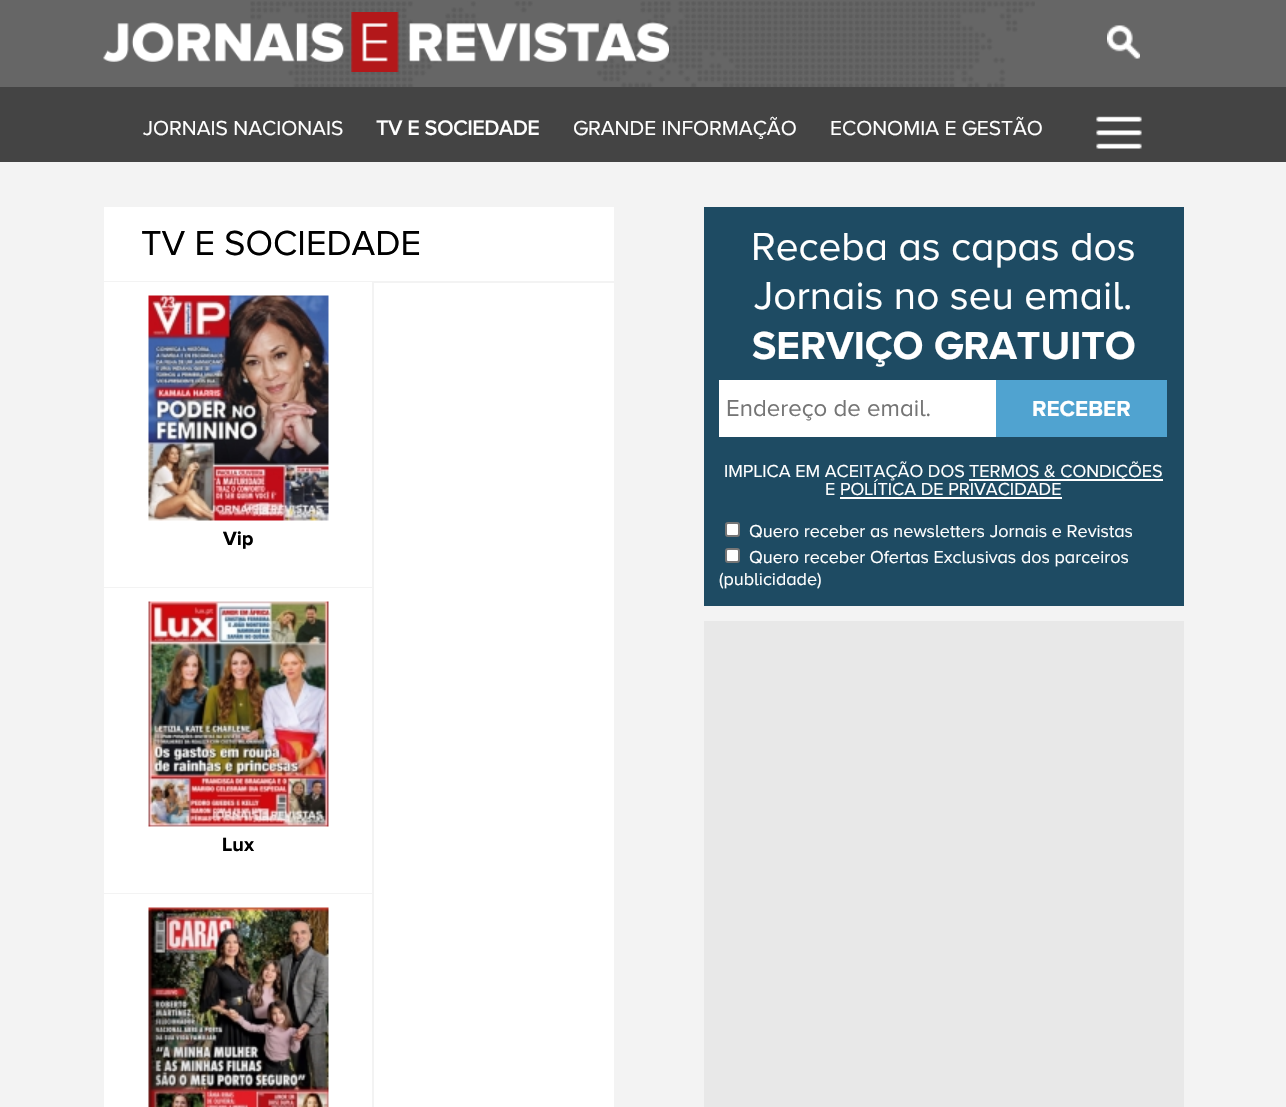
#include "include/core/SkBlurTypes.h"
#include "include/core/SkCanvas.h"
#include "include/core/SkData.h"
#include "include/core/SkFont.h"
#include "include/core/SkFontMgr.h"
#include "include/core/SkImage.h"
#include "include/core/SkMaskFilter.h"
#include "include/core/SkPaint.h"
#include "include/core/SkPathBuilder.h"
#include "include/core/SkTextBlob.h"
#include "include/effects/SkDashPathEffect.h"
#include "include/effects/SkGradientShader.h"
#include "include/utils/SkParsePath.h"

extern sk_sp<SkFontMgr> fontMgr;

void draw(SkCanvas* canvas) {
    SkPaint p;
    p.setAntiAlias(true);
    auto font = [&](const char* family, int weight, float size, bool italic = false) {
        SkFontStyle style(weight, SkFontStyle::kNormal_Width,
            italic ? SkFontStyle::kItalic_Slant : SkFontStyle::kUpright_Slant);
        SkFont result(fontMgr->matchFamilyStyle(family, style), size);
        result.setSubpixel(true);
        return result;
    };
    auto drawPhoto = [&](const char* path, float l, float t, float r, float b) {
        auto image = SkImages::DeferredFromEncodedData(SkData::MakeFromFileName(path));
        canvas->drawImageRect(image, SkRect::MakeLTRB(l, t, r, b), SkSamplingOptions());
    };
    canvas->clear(0xFFF3F3F3);
    p.setColor(0xFF666666);
    canvas->drawRect(SkRect::MakeLTRB(0, 0, 1286, 87), p);
    drawPhoto("media/1.png", 250, 1, 1035, 87);
    drawPhoto("media/2.png", 103, 12, 669, 72);
    drawPhoto("media/3.png", 1107, 25, 1140, 59);
    p.setColor(0xFF444444);
    canvas->drawRect(SkRect::MakeLTRB(0, 87, 1286, 162), p);
    auto font1 = font("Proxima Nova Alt", 400, 21);
    p.setColor(0xFFFFFFFF);
    canvas->drawString("JORNAIS NACIONAIS", 143, 135, font1, p);
    auto font2 = font("Proxima Nova Alt", 700, 21);
    canvas->drawString("TV E SOCIEDADE", 376, 135, font2, p);
    canvas->drawString("GRANDE INFORMAÇÃO", 573, 135, font1, p);
    canvas->drawString("ECONOMIA E GESTÃO", 830, 135, font1, p);
    drawPhoto("media/4.png", 1096, 116, 1142, 149);
    canvas->drawRect(SkRect::MakeLTRB(104, 207, 614, 1107), p);
    p.setColor(0xFFF3F3F3);
    canvas->drawRect(SkRect::MakeLTRB(104, 281, 614, 283), p);
    auto font3 = font("Proxima Nova Alt", 400, 36);
    p.setColor(0xFF000000);
    canvas->drawString("TV E SOCIEDADE", 141, 255, font3, p);
    {
        const struct { float l, t, r, b; SkColor color; } items[] = {
            {104, 282, 372, 283, 0xFFFFFFFF},
            {372, 282, 374, 1107, 0xFFF3F3F3},
            {104, 587, 374, 588, 0xFFF3F3F3},
        };
        for (auto [l, t, r, b, color] : items) {
            p.setColor(color);
            canvas->drawRect(SkRect::MakeLTRB(l, t, r, b), p);
        }
    }
    drawPhoto("media/5.png", 148, 295, 329, 521);
    auto font4 = font("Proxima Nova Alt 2", 700, 20);
    p.setColor(0xFF000000);
    canvas->drawString("Vip", 223, 545, font4, p);
    p.setColor(0xFFF3F3F3);
    canvas->drawRect(SkRect::MakeLTRB(104, 893, 374, 894), p);
    drawPhoto("media/6.png", 148, 601, 329, 827);
    p.setColor(0xFF000000);
    canvas->drawString("Lux", 222, 851, font4, p);
    drawPhoto("media/7.png", 148, 907, 329, 1107);
    p.setColor(0xFF1E4B63);
    canvas->drawRect(SkRect::MakeLTRB(704, 207, 1184, 606), p);
    auto font5 = font("Proxima Nova Alt", 400, 40.5f);
    p.setColor(0xFFFFFFFF);
    canvas->drawString("Receba as capas dos", 751, 260, font5, p);
    canvas->drawString("Jornais no seu email.", 754, 309, font5, p);
    auto font6 = font("Proxima Nova Alt 2", 700, 40.5f);
    canvas->drawString("SERVIÇO GRATUITO", 752, 359, font6, p);
    canvas->drawRect(SkRect::MakeLTRB(719, 380, 996, 437), p);
    auto font7 = font("Proxima Nova Alt", 400, 24);
    p.setColor(0xFF757575);
    canvas->drawString("Endereço de email.", 726, 416, font7, p);
    p.setColor(0xFF50A3D0);
    canvas->drawRect(SkRect::MakeLTRB(996, 380, 1167, 437), p);
    auto font8 = font("Proxima Nova Alt 2", 700, 22.5f);
    p.setColor(0xFFFFFFFF);
    canvas->drawString("RECEBER", 1032, 416, font8, p);
    auto font9 = font("Proxima Nova Alt", 400, 18);
    canvas->drawString("IMPLICA EM ACEITAÇÃO DOS", 724, 477, font9, p);
    canvas->drawRect(SkRect::MakeLTRB(969, 479, 1163, 481), p);
    canvas->drawString("TERMOS & CONDIÇÕES", 969, 477, font9, p);
    canvas->drawString("E POLÍTICA DE PRIVACIDADE", 825, 495, font9, p);
    canvas->drawRect(SkRect::MakeLTRB(840, 497, 1062, 499), p);
    canvas->drawRoundRect(SkRect::MakeLTRB(726, 523, 739, 536), 2, 2, p);
    p.setStyle(SkPaint::kStroke_Style);
    p.setStrokeWidth(2);
    p.setColor(0xFF767676);
    canvas->drawRoundRect(SkRect::MakeLTRB(726, 523, 739, 536), 2, 2, p);
    p.setStyle(SkPaint::kFill_Style);
    p.setColor(0xFFFFFFFF);
    canvas->drawString("Quero receber as newsletters Jornais e Revistas", 749, 537, font9, p);
    canvas->drawRoundRect(SkRect::MakeLTRB(726, 549, 739, 562), 2, 2, p);
    p.setStyle(SkPaint::kStroke_Style);
    p.setColor(0xFF767676);
    canvas->drawRoundRect(SkRect::MakeLTRB(726, 549, 739, 562), 2, 2, p);
    p.setStyle(SkPaint::kFill_Style);
    p.setColor(0xFFFFFFFF);
    canvas->drawString("Quero receber Ofertas Exclusivas dos parceiros", 749, 563, font9, p);
    canvas->drawString("(publicidade)", 719, 585, font9, p);
    p.setColor(0xFFE8E8E8);
    canvas->drawRect(SkRect::MakeLTRB(704, 621, 1184, 1107), p);
}
